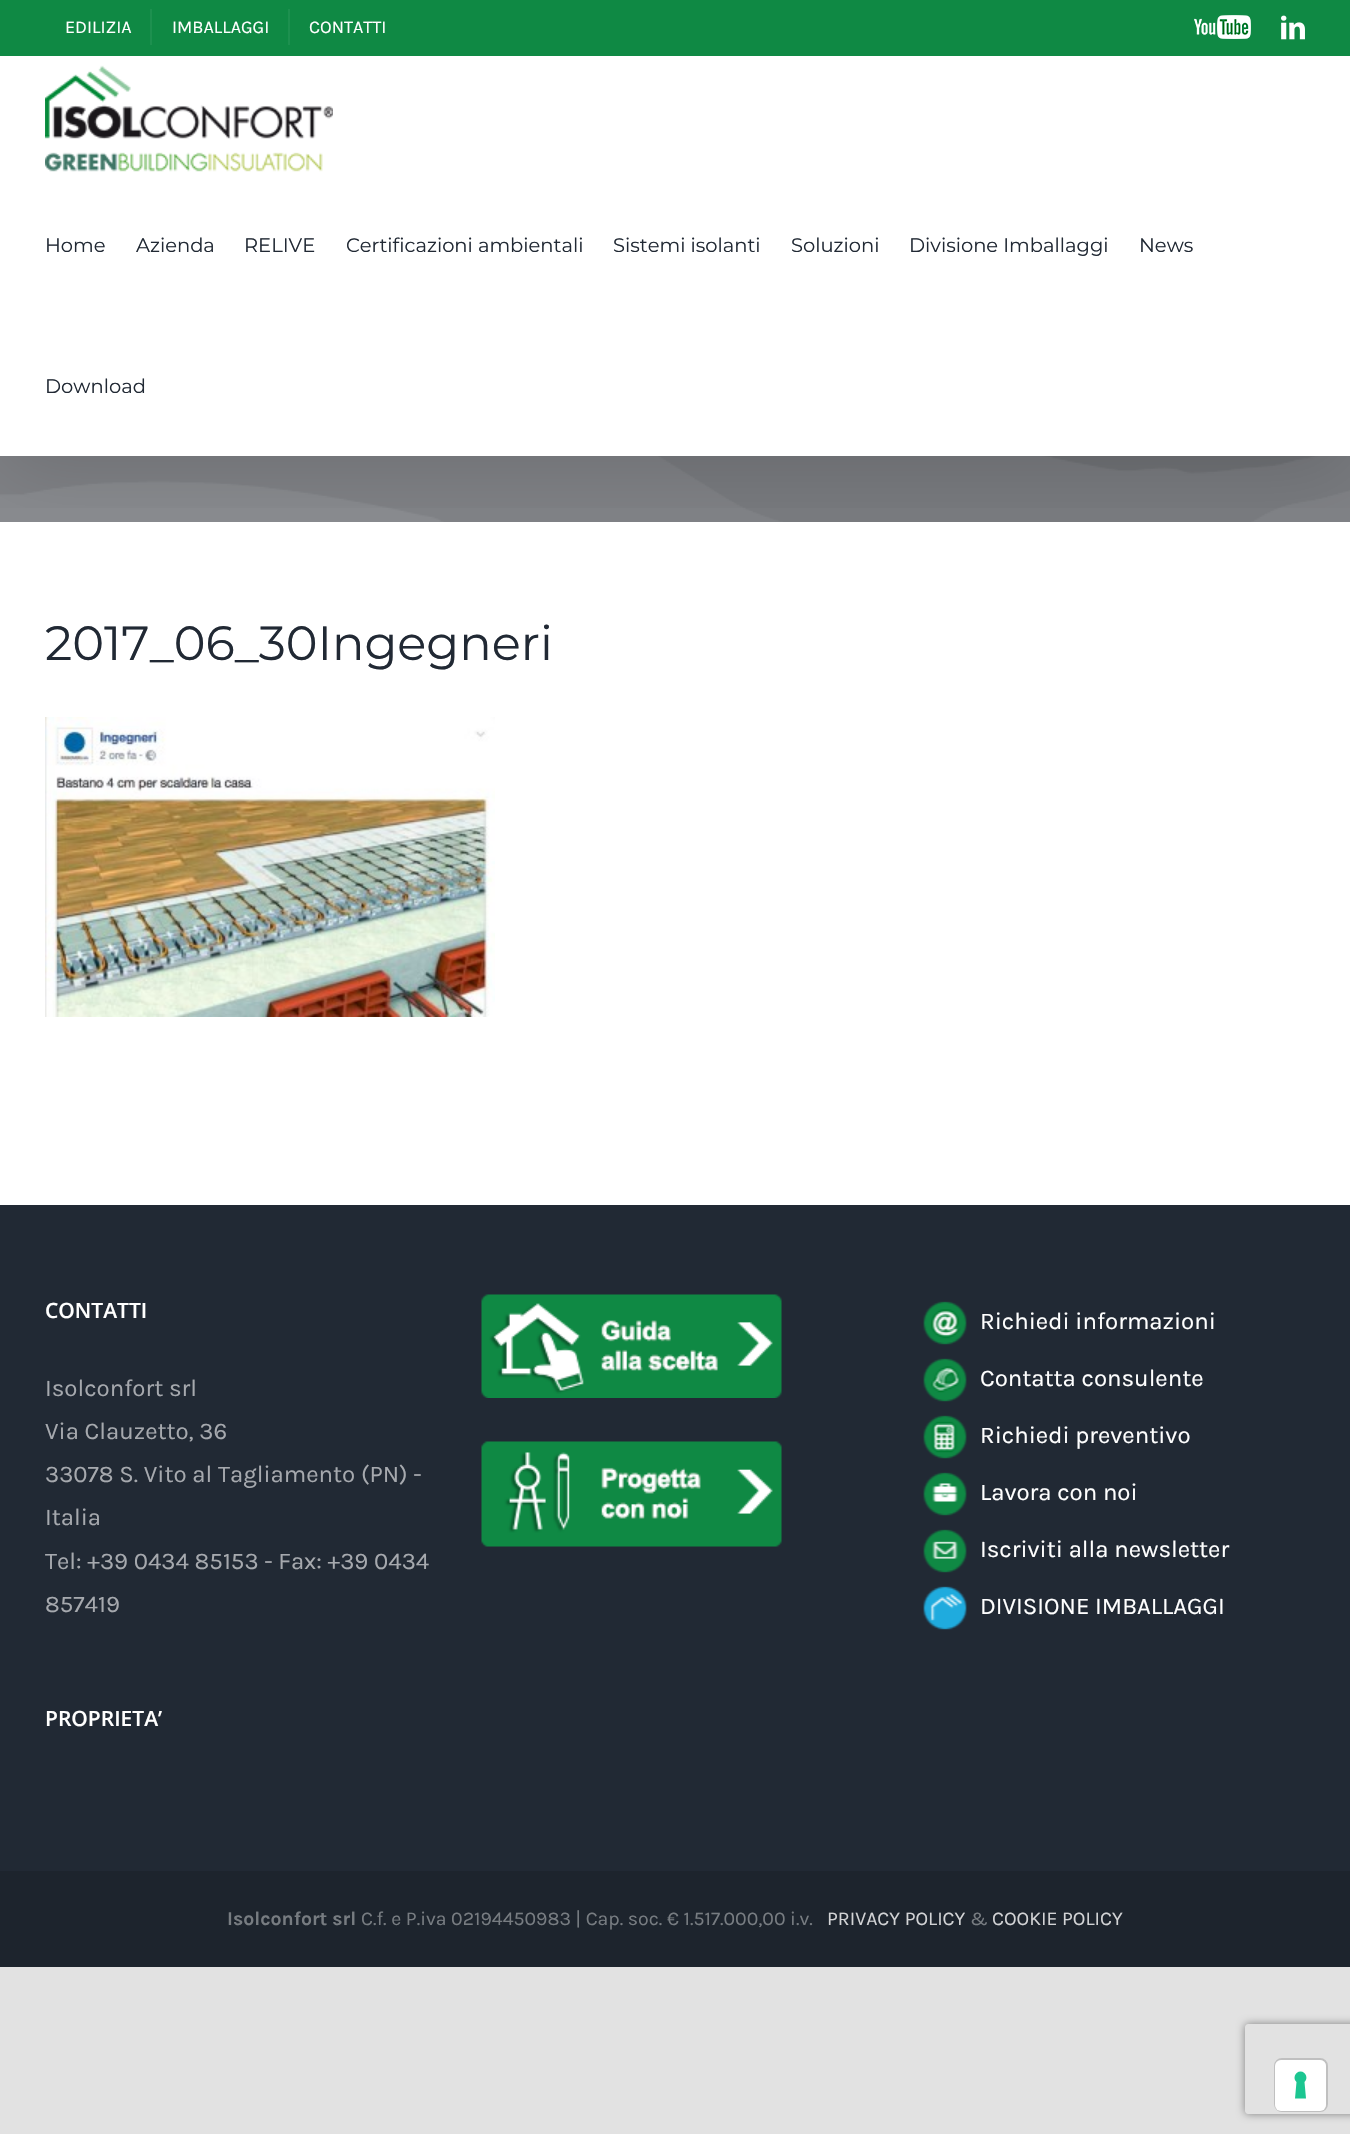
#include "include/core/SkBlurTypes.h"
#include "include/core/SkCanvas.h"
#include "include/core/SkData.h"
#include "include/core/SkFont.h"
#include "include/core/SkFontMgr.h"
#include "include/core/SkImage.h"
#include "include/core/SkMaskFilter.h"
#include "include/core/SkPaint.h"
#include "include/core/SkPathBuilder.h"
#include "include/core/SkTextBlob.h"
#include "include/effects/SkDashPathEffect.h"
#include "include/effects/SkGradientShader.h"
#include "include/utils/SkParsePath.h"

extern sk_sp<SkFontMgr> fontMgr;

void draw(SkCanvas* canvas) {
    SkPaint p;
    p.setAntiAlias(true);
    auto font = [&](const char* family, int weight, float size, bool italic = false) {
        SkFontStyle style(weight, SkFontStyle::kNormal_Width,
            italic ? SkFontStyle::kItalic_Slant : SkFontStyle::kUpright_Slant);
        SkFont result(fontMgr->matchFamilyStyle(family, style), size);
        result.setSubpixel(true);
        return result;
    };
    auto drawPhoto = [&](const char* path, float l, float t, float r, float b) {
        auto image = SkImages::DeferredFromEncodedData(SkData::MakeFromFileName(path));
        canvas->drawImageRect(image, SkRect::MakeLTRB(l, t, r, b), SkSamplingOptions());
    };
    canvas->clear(0xFFE2E2E2);
    p.setColor(0xFFFFFFFF);
    canvas->drawRect(SkRect::MakeLTRB(0, 56, 1350, 1205), p);
    drawPhoto("media/4.png", 0, 456, 1350, 522);
    canvas->save();
    canvas->clipRect(SkRect::MakeLTRB(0, 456, 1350, 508));
    p.setColor(0x24000000);
    p.setMaskFilter(SkMaskFilter::MakeBlur(kNormal_SkBlurStyle, 37.5f));
    canvas->drawRect(SkRect::MakeLTRB(3, 18, 1347, 468), p);
    p.setMaskFilter(nullptr);
    canvas->restore();
    p.setColor(0xFF0F8944);
    canvas->drawRect(SkRect::MakeLTRB(0, 0, 1350, 56), p);
    auto font1 = font("Karla", 400, 18);
    p.setColor(0xFFFFFFFF);
    canvas->drawString("EDILIZIA", 65, 33, font1, p);
    p.setColor(0xFF1D904F);
    canvas->drawRect(SkRect::MakeLTRB(150, 9, 152, 45), p);
    p.setColor(0xFFFFFFFF);
    canvas->drawString("IMBALLAGGI", 172, 33, font1, p);
    p.setColor(0xFF1D904F);
    canvas->drawRect(SkRect::MakeLTRB(288, 9, 290, 45), p);
    p.setColor(0xFFFFFFFF);
    canvas->drawString("CONTATTI", 309, 33, font1, p);
    drawPhoto("media/1.png", 1194, 15, 1251, 39);
    drawPhoto("media/2.png", 1281, 15, 1305, 40);
    drawPhoto("media/3.png", 45, 65, 333, 172);
    auto font2 = font("Montserrat", 100, 19.5f);
    p.setColor(0xFF212934);
    {
        const struct { const char* s; float x, y; } items[] = {
            {"Home", 45, 252},
            {"Azienda", 136, 252},
            {"RELIVE", 244, 252},
            {"Certificazioni ambientali", 346, 252},
            {"Sistemi isolanti", 613, 252},
            {"Soluzioni", 791, 252},
            {"Divisione Imballaggi", 909, 252},
            {"News", 1139, 252},
            {"Download", 45, 393},
        };
        for (auto [s, x, y] : items) {
            canvas->drawString(s, x, y, font2, p);
        }
    }
    auto font3 = font("Montserrat", 100, 48);
    canvas->drawString("2017_06_30Ingegneri", 45, 660, font3, p);
    drawPhoto("media/5.png", 45, 717, 495, 1017);
    canvas->drawRect(SkRect::MakeLTRB(0, 1205, 1350, 1871), p);
    auto font4 = font("Open Sans", 600, 21);
    p.setColor(0xFFFFFFFF);
    canvas->drawString("CONTATTI", 45, 1318, font4, p);
    auto font5 = font("Karla", 400, 24);
    p.setColor(0xFFA6A9AE);
    {
        const struct { const char* s; float x, y; } items[] = {
            {"Isolconfort srl", 45, 1396},
            {"Via Clauzetto, 36", 45, 1439},
            {"33078 S. Vito al Tagliamento (PN) -", 45, 1482},
            {"Italia", 45, 1525},
            {"Tel: +39 0434 85153 - Fax: +39 0434", 45, 1569},
            {"857419", 45, 1612},
        };
        for (auto [s, x, y] : items) {
            canvas->drawString(s, x, y, font5, p);
        }
    }
    p.setColor(0xFFFFFFFF);
    canvas->drawString("PROPRIETA’", 45, 1726, font4, p);
    drawPhoto("media/6.png", 481, 1294, 782, 1398);
    drawPhoto("media/7.png", 481, 1441, 782, 1547);
    drawPhoto("media/8.png", 923, 1301, 967, 1345);
    canvas->drawString("Richiedi informazioni", 980, 1329, font5, p);
    drawPhoto("media/9.png", 923, 1358, 967, 1402);
    canvas->drawString("Contatta consulente", 980, 1386, font5, p);
    drawPhoto("media/10.png", 923, 1415, 967, 1459);
    canvas->drawString("Richiedi preventivo", 980, 1443, font5, p);
    drawPhoto("media/11.png", 923, 1472, 967, 1516);
    canvas->drawString("Lavora con noi", 980, 1500, font5, p);
    drawPhoto("media/12.png", 923, 1529, 967, 1573);
    canvas->drawString("Iscriviti alla newsletter", 980, 1557, font5, p);
    drawPhoto("media/13.png", 923, 1586, 967, 1630);
    canvas->drawString("DIVISIONE IMBALLAGGI", 980, 1614, font5, p);
    p.setColor(0xFF1D242D);
    canvas->drawRect(SkRect::MakeLTRB(0, 1871, 1350, 1967), p);
    auto font6 = font("Karla", 700, 19.5f);
    p.setColor(0xFF777C81);
    canvas->drawString("Isolconfort srl", 227, 1925, font6, p);
    auto font7 = font("Karla", 400, 19.5f);
    canvas->drawString("C.f. e P.iva 02194450983 | Cap. soc. € 1.517.000,00 i.v.", 361, 1925, font7, p);
    p.setColor(0xFFD2D3D5);
    canvas->drawString("PRIVACY POLICY", 827, 1925, font7, p);
    p.setColor(0xFF777C81);
    canvas->drawString("&", 970, 1925, font7, p);
    p.setColor(0xFFD2D3D5);
    canvas->drawString("COOKIE POLICY", 992, 1925, font7, p);
    canvas->save();
    canvas->clipPath(SkPathBuilder(SkPathFillType::kEvenOdd).moveTo(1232, 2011).lineTo(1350, 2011).lineTo(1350, 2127).lineTo(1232, 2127).close().moveTo(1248, 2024).lineTo(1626, 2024).cubicTo(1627.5f, 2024, 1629, 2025.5f, 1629, 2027).lineTo(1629, 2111).cubicTo(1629, 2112.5f, 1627.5f, 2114, 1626, 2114).lineTo(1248, 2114).cubicTo(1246.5f, 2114, 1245, 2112.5f, 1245, 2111).lineTo(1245, 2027).cubicTo(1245, 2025.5f, 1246.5f, 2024, 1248, 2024).close().detach(), true);
    p.setColor(0xFF808080);
    p.setMaskFilter(SkMaskFilter::MakeBlur(kNormal_SkBlurStyle, 4));
    canvas->drawRoundRect(SkRect::MakeLTRB(1245, 2024, 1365, 2114), 3, 3, p);
    p.setMaskFilter(nullptr);
    canvas->restore();
    p.setStyle(SkPaint::kStroke_Style);
    p.setStrokeWidth(2);
    p.setColor(0xFFC0C0C0);
    canvas->drawRoundRect(SkRect::MakeLTRB(1275, 2059, 1327, 2111), 7, 7, p);
    p.setStyle(SkPaint::kFill_Style);
    p.setColor(0xFFFFFFFF);
    canvas->drawRoundRect(SkRect::MakeLTRB(1275, 2060, 1326, 2111), 6, 6, p);
    p.setColor(0xFF1CC691);
    canvas->drawPath(SkPathBuilder(SkPathFillType::kEvenOdd).moveTo(1300.5f, 2071.5f).cubicTo(1306, 2071.5f, 1308.5f, 2078.5f, 1304.5f, 2082).lineTo(1306, 2098.5f).lineTo(1295, 2098.5f).lineTo(1296.5f, 2082).cubicTo(1292.5f, 2078.5f, 1295, 2071.5f, 1300.5f, 2071.5f).close().detach(), p);
}
